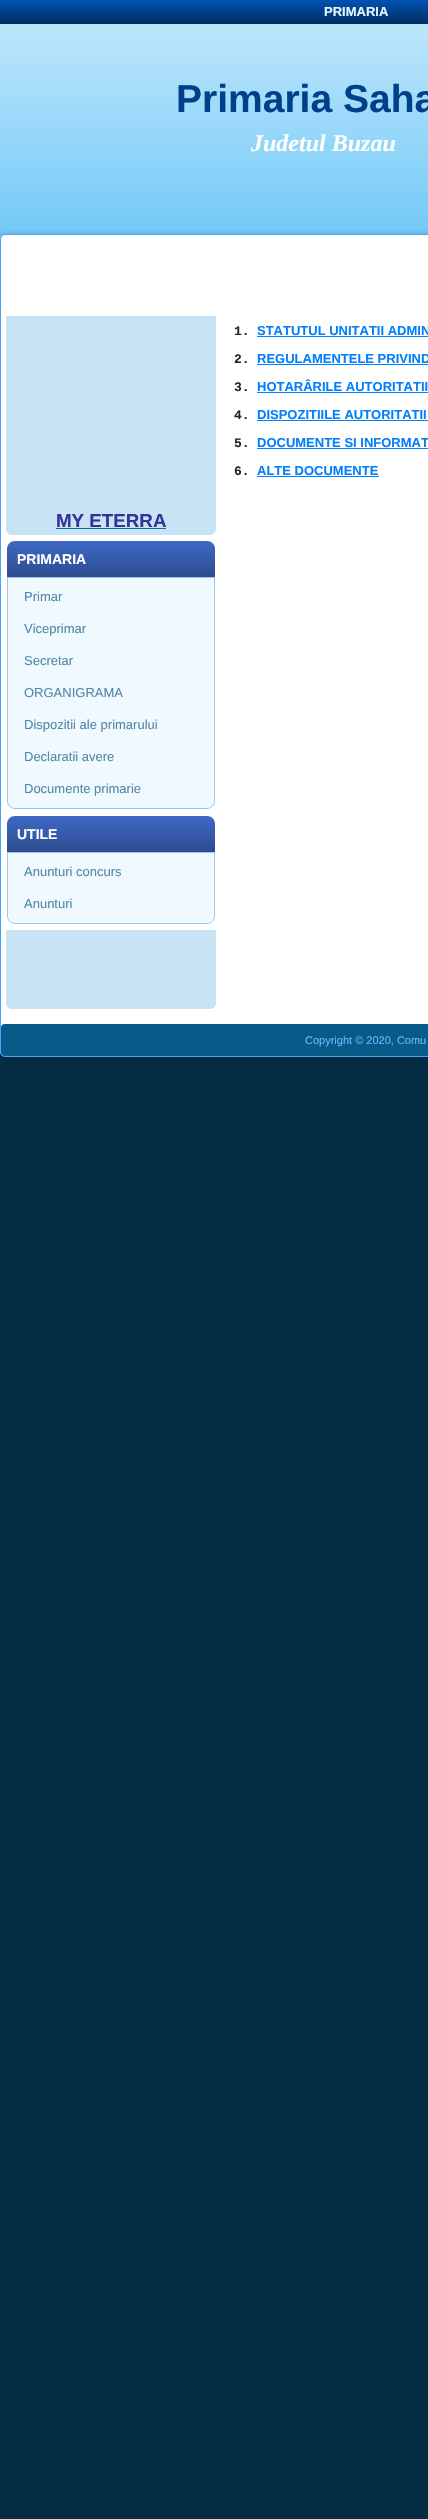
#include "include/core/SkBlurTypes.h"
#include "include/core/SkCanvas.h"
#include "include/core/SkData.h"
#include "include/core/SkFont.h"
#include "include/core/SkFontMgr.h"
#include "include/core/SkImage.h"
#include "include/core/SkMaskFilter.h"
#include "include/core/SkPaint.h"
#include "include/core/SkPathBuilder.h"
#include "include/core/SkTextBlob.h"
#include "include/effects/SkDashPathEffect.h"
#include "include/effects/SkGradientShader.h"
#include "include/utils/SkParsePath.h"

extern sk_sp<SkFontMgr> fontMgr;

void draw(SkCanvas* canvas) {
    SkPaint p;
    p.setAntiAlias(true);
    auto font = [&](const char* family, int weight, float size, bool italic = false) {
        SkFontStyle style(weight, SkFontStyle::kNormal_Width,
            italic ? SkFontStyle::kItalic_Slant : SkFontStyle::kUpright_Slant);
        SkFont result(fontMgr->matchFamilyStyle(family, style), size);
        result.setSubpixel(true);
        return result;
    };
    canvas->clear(0xFFFFFFFF);
    {
        const SkColor colors[] = {0xFFC5E9FC, 0xFF0DA2F2, 0xFF042D44};
        const float stops[] = {0, 0.21f, 0.42f};
        const SkPoint ends[] = {{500, 0}, {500, 2519}};
        p.setShader(SkGradientShader::MakeLinear(ends, colors, stops, 3, SkTileMode::kClamp));
        p.setAlpha(255);
    }
    canvas->drawRect(SkRect::MakeLTRB(0, 24, 428, 2519), p);
    {
        const SkColor colors[] = {0xFF0053B2, 0xFF002D61};
        const float stops[] = {0, 1};
        const SkPoint ends[] = {{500, 0}, {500, 24}};
        p.setShader(SkGradientShader::MakeLinear(ends, colors, stops, 2, SkTileMode::kClamp));
        p.setAlpha(255);
    }
    canvas->drawRect(SkRect::MakeLTRB(0, 0, 428, 24), p);
    auto font1 = font("Liberation Sans", 700, 13);
    p.setShader(nullptr);
    p.setColor(0xFFE7F6FE);
    canvas->drawString("PRIMARIA", 324, 16, font1, p);
    auto font2 = font("Liberation Sans", 700, 39);
    p.setColor(0xFF00408A);
    canvas->drawString("Primaria Saha", 176, 112, font2, p);
    auto font3 = font("Liberation Serif", 700, 24, true);
    p.setColor(0xFFFFFFFF);
    canvas->drawString("Judetul Buzau", 251, 151, font3, p);
    p.setColor(0x1A000000);
    p.setMaskFilter(SkMaskFilter::MakeBlur(kNormal_SkBlurStyle, 1.5f));
    canvas->drawRoundRect(SkRect::MakeLTRB(-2, 232, 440, 1059), 7, 7, p);
    p.setMaskFilter(nullptr);
    p.setColor(0xFFFFFFFF);
    canvas->drawRoundRect(SkRect::MakeLTRB(0.5f, 234.5f, 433.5f, 1056.5f), 4.5f, 4.5f, p);
    p.setStyle(SkPaint::kStroke_Style);
    p.setStrokeWidth(1);
    p.setColor(0xFF49A3FD);
    canvas->drawRoundRect(SkRect::MakeLTRB(0.5f, 234.5f, 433.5f, 1056.5f), 4.5f, 4.5f, p);
    auto font4 = font("Liberation Mono", 700, 13);
    p.setStyle(SkPaint::kFill_Style);
    p.setColor(0xFF212529);
    canvas->drawString("1.", 234, 335, font4, p);
    p.setColor(0xFF037FFC);
    canvas->drawString("STATUTUL UNITATII ADMIN", 257, 335, font1, p);
    canvas->drawRect(SkRect::MakeLTRB(257, 336, 428, 337), p);
    p.setColor(0xFF212529);
    canvas->drawString("2.", 234, 363, font4, p);
    p.setColor(0xFF037FFC);
    canvas->drawString("REGULAMENTELE PRIVIND", 257, 363, font1, p);
    canvas->drawRect(SkRect::MakeLTRB(257, 364, 428, 365), p);
    p.setColor(0xFF212529);
    canvas->drawString("3.", 234, 391, font4, p);
    p.setColor(0xFF037FFC);
    canvas->drawString("HOTARÂRILE AUTORITATII", 257, 391, font1, p);
    canvas->drawRect(SkRect::MakeLTRB(257, 392, 428, 393), p);
    p.setColor(0xFF212529);
    canvas->drawString("4.", 234, 419, font4, p);
    p.setColor(0xFF037FFC);
    canvas->drawString("DISPOZITIILE AUTORITATII", 257, 419, font1, p);
    canvas->drawRect(SkRect::MakeLTRB(257, 420, 428, 421), p);
    p.setColor(0xFF212529);
    canvas->drawString("5.", 234, 447, font4, p);
    p.setColor(0xFF037FFC);
    canvas->drawString("DOCUMENTE SI INFORMAT", 257, 447, font1, p);
    canvas->drawRect(SkRect::MakeLTRB(257, 448, 428, 449), p);
    p.setColor(0xFF212529);
    canvas->drawString("6.", 234, 475, font4, p);
    p.setColor(0xFF037FFC);
    canvas->drawString("ALTE DOCUMENTE", 257, 475, font1, p);
    canvas->drawRect(SkRect::MakeLTRB(257, 476, 379, 477), p);
    p.setColor(0xFFC8E3F3);
    canvas->drawPath(SkPathBuilder().moveTo(6, 316).lineTo(216, 316).lineTo(216, 529).cubicTo(216, 532.5f, 213.5f, 535, 210, 535).lineTo(12, 535).cubicTo(8.5f, 535, 6, 532.5f, 6, 529).close().detach(), p);
    auto font5 = font("Liberation Sans", 700, 18.75f);
    p.setColor(0xFF333399);
    canvas->drawString("MY ETERRA", 56, 527, font5, p);
    p.setColor(0xFF096EA5);
    canvas->drawRect(SkRect::MakeLTRB(56, 528, 166, 529), p);
    {
        const SkColor colors[] = {0xFF416AC3, 0xFF3D67C2, 0xFF2D4C8F};
        const float stops[] = {0, 0.07f, 1};
        const SkPoint ends[] = {{111, 541}, {111, 577}};
        p.setShader(SkGradientShader::MakeLinear(ends, colors, stops, 3, SkTileMode::kClamp));
        p.setAlpha(255);
    }
    canvas->drawPath(SkPathBuilder().moveTo(15, 541).lineTo(207, 541).cubicTo(211.5f, 541, 215, 544.5f, 215, 549).lineTo(215, 577).lineTo(7, 577).lineTo(7, 549).cubicTo(7, 544.5f, 10.5f, 541, 15, 541).close().detach(), p);
    auto font6 = font("Liberation Sans", 700, 14);
    p.setShader(nullptr);
    p.setColor(0xFFFFFFFF);
    canvas->drawString("PRIMARIA", 17, 564, font6, p);
    p.setColor(0xFFF0F9FF);
    canvas->drawPath(SkPathBuilder().moveTo(7.5f, 577.5f).lineTo(214.5f, 577.5f).lineTo(214.5f, 801).cubicTo(214.5f, 805, 211, 808.5f, 207, 808.5f).lineTo(15, 808.5f).cubicTo(11, 808.5f, 7.5f, 805, 7.5f, 801).close().detach(), p);
    p.setStyle(SkPaint::kStroke_Style);
    p.setColor(0xFF96C9E9);
    canvas->drawPath(SkPathBuilder().moveTo(7.5f, 577.5f).lineTo(214.5f, 577.5f).lineTo(214.5f, 801).cubicTo(214.5f, 805, 211, 808.5f, 207, 808.5f).lineTo(15, 808.5f).cubicTo(11, 808.5f, 7.5f, 805, 7.5f, 801).close().detach(), p);
    auto font7 = font("Liberation Sans", 400, 13);
    p.setStyle(SkPaint::kFill_Style);
    p.setColor(0xFF5487A6);
    {
        const struct { const char* s; float x, y; } items[] = {
            {"Primar", 24, 601},
            {"Viceprimar", 24, 633},
            {"Secretar", 24, 665},
            {"ORGANIGRAMA", 24, 697},
            {"Dispozitii ale primarului", 24, 729},
            {"Declaratii avere", 24, 761},
            {"Documente primarie", 24, 793},
        };
        for (auto [s, x, y] : items) {
            canvas->drawString(s, x, y, font7, p);
        }
    }
    {
        const SkColor colors[] = {0xFF416AC3, 0xFF3D67C2, 0xFF2D4C8F};
        const float stops[] = {0, 0.07f, 1};
        const SkPoint ends[] = {{111, 816}, {111, 852}};
        p.setShader(SkGradientShader::MakeLinear(ends, colors, stops, 3, SkTileMode::kClamp));
        p.setAlpha(255);
    }
    canvas->drawPath(SkPathBuilder().moveTo(15, 816).lineTo(207, 816).cubicTo(211.5f, 816, 215, 819.5f, 215, 824).lineTo(215, 852).lineTo(7, 852).lineTo(7, 824).cubicTo(7, 819.5f, 10.5f, 816, 15, 816).close().detach(), p);
    p.setShader(nullptr);
    p.setColor(0xFFFFFFFF);
    canvas->drawString("UTILE", 17, 839, font6, p);
    p.setColor(0xFFF0F9FF);
    canvas->drawPath(SkPathBuilder().moveTo(7.5f, 852.5f).lineTo(214.5f, 852.5f).lineTo(214.5f, 916).cubicTo(214.5f, 920, 211, 923.5f, 207, 923.5f).lineTo(15, 923.5f).cubicTo(11, 923.5f, 7.5f, 920, 7.5f, 916).close().detach(), p);
    p.setStyle(SkPaint::kStroke_Style);
    p.setColor(0xFF96C9E9);
    canvas->drawPath(SkPathBuilder().moveTo(7.5f, 852.5f).lineTo(214.5f, 852.5f).lineTo(214.5f, 916).cubicTo(214.5f, 920, 211, 923.5f, 207, 923.5f).lineTo(15, 923.5f).cubicTo(11, 923.5f, 7.5f, 920, 7.5f, 916).close().detach(), p);
    p.setStyle(SkPaint::kFill_Style);
    p.setColor(0xFF5487A6);
    canvas->drawString("Anunturi concurs", 24, 876, font7, p);
    canvas->drawString("Anunturi", 24, 908, font7, p);
    p.setColor(0xFFC8E3F3);
    canvas->drawPath(SkPathBuilder().moveTo(6, 930).lineTo(216, 930).lineTo(216, 1003).cubicTo(216, 1006.5f, 213.5f, 1009, 210, 1009).lineTo(12, 1009).cubicTo(8.5f, 1009, 6, 1006.5f, 6, 1003).close().detach(), p);
    p.setColor(0xFF075B88);
    canvas->drawRoundRect(SkRect::MakeLTRB(1, 1024, 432, 1056), 4, 4, p);
    auto font8 = font("Liberation Sans", 400, 11);
    p.setColor(0xFF6DB5FE);
    canvas->drawString("Copyright © 2020, Comu", 305, 1044, font8, p);
}
